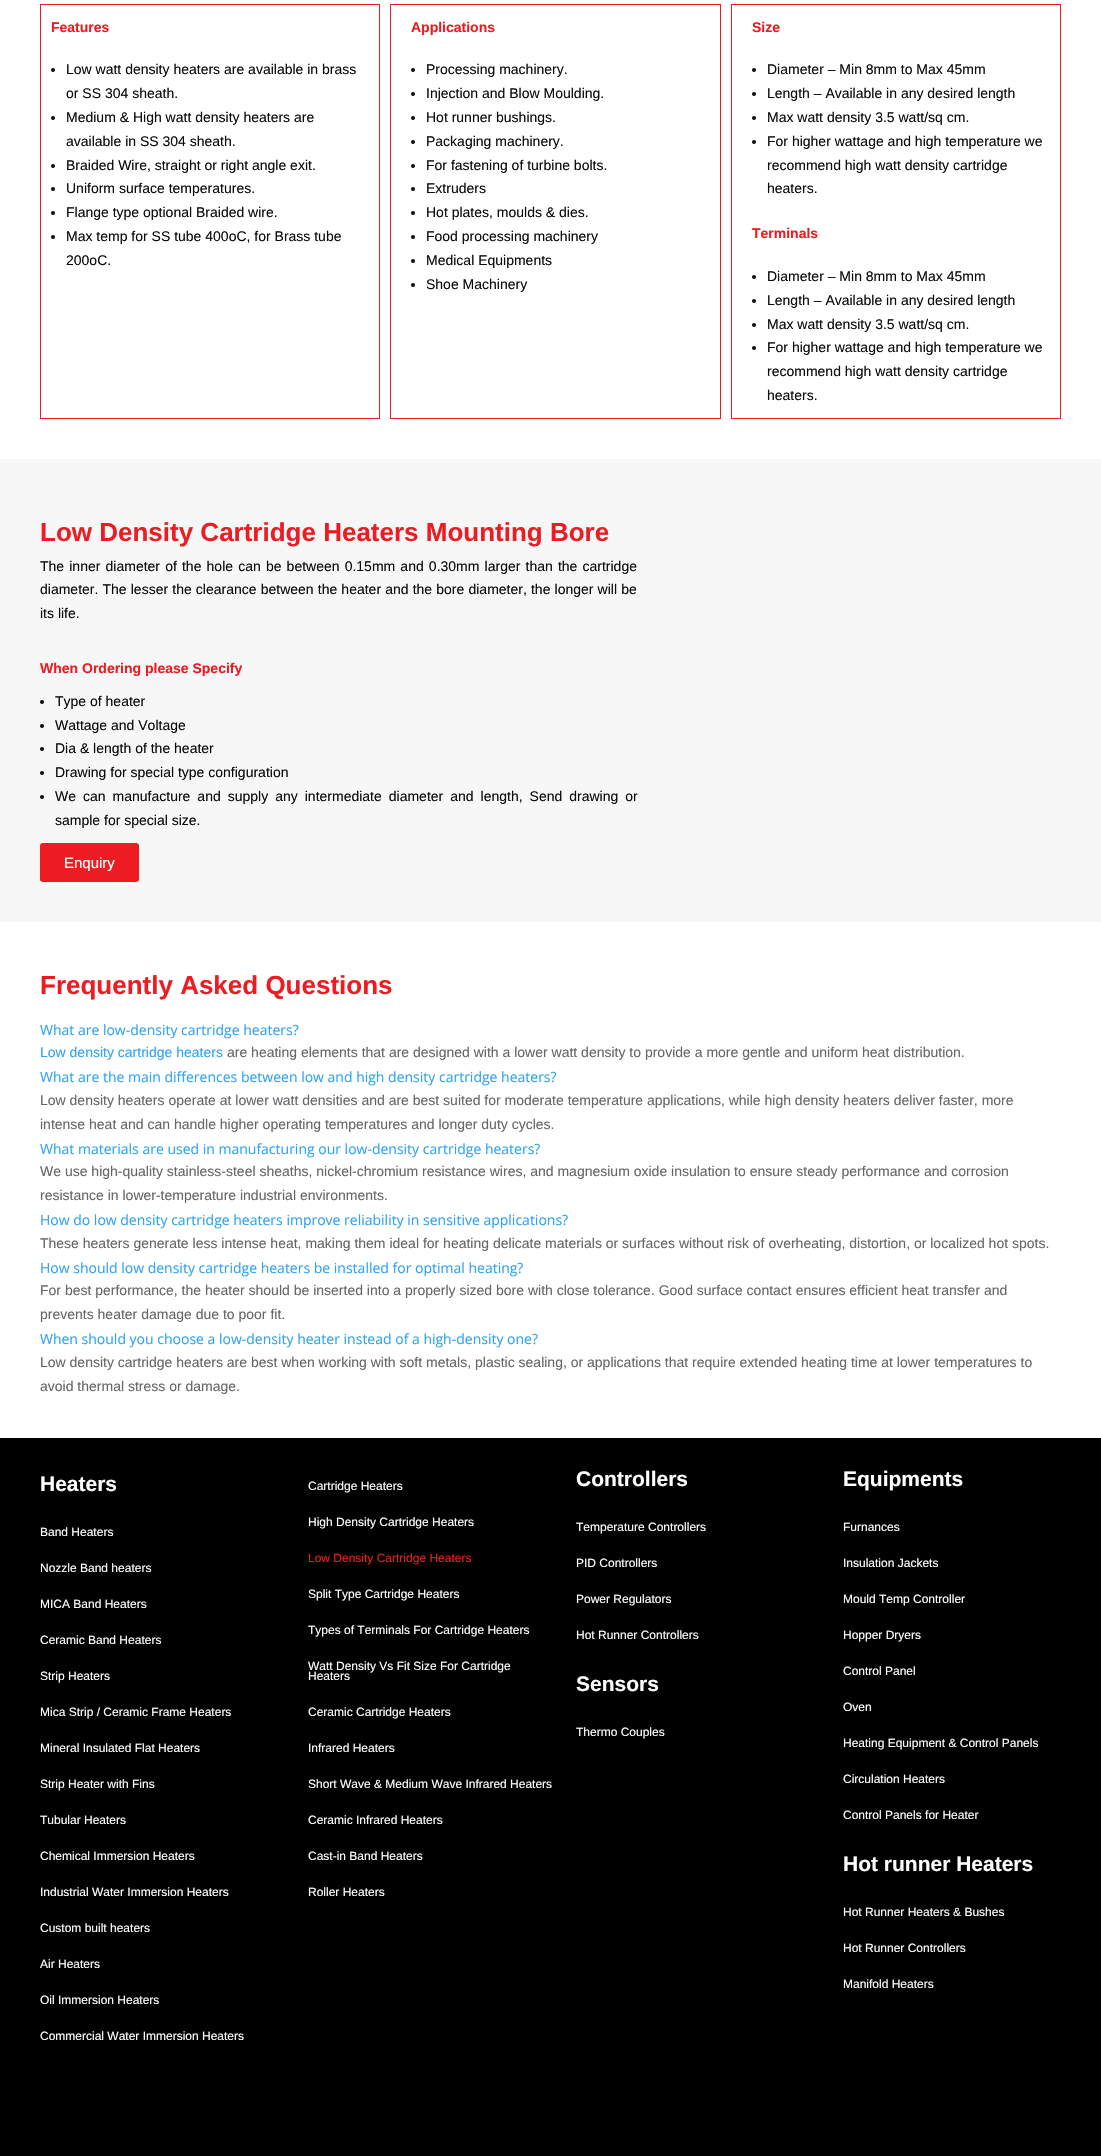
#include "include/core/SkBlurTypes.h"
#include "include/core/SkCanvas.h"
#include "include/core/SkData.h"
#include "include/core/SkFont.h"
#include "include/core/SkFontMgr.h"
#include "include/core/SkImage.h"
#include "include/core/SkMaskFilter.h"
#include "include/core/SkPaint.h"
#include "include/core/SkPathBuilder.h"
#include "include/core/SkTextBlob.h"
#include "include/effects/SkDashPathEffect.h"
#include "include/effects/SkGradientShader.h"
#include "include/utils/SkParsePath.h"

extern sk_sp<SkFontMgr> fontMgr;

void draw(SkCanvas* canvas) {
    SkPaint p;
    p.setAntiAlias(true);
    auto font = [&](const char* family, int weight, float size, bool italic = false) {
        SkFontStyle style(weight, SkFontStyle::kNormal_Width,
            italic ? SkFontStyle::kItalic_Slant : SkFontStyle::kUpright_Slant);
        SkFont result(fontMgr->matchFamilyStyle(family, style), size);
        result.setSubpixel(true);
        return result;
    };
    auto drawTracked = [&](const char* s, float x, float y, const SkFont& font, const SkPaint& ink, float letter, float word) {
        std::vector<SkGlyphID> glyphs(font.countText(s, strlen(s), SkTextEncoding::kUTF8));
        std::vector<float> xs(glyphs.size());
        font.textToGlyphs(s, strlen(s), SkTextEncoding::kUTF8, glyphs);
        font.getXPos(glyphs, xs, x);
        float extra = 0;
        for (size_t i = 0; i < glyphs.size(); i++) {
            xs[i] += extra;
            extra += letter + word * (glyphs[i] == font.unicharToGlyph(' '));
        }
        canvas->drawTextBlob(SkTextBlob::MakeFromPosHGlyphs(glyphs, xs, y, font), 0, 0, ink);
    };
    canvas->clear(0xFFFFFFFF);
    p.setStyle(SkPaint::kStroke_Style);
    p.setStrokeWidth(1);
    p.setColor(0xFFED1C22);
    canvas->drawRect(SkRect::MakeLTRB(40.5f, 4.5f, 379.5f, 418.5f), p);
    auto font1 = font("Liberation Sans", 700, 14);
    p.setStyle(SkPaint::kFill_Style);
    canvas->drawString("Features", 51, 32, font1, p);
    p.setColor(0xFF090C08);
    canvas->drawCircle(53, 70, 2, p);
    auto font2 = font("Liberation Sans", 400, 14);
    canvas->drawString("Low watt density heaters are available in brass", 66, 74, font2, p);
    canvas->drawString("or SS 304 sheath.", 66, 98, font2, p);
    canvas->drawCircle(53, 118, 2, p);
    canvas->drawString("Medium & High watt density heaters are", 66, 122, font2, p);
    canvas->drawString("available in SS 304 sheath.", 66, 146, font2, p);
    canvas->drawCircle(53, 166, 2, p);
    canvas->drawString("Braided Wire, straight or right angle exit.", 66, 170, font2, p);
    canvas->drawCircle(53, 189, 2, p);
    canvas->drawString("Uniform surface temperatures.", 66, 193, font2, p);
    canvas->drawCircle(53, 213, 2, p);
    canvas->drawString("Flange type optional Braided wire.", 66, 217, font2, p);
    canvas->drawCircle(53, 237, 2, p);
    canvas->drawString("Max temp for SS tube 400oC, for Brass tube", 66, 241, font2, p);
    canvas->drawString("200oC.", 66, 265, font2, p);
    p.setStyle(SkPaint::kStroke_Style);
    p.setColor(0xFFED1C22);
    canvas->drawRect(SkRect::MakeLTRB(390.5f, 4.5f, 720.5f, 418.5f), p);
    p.setStyle(SkPaint::kFill_Style);
    canvas->drawString("Applications", 411, 32, font1, p);
    p.setColor(0xFF090C08);
    canvas->drawCircle(413, 70, 2, p);
    canvas->drawString("Processing machinery.", 426, 74, font2, p);
    canvas->drawCircle(413, 94, 2, p);
    canvas->drawString("Injection and Blow Moulding.", 426, 98, font2, p);
    canvas->drawCircle(413, 118, 2, p);
    canvas->drawString("Hot runner bushings.", 426, 122, font2, p);
    canvas->drawCircle(413, 142, 2, p);
    canvas->drawString("Packaging machinery.", 426, 146, font2, p);
    canvas->drawCircle(413, 166, 2, p);
    canvas->drawString("For fastening of turbine bolts.", 426, 170, font2, p);
    canvas->drawCircle(413, 189, 2, p);
    canvas->drawString("Extruders", 426, 193, font2, p);
    canvas->drawCircle(413, 213, 2, p);
    canvas->drawString("Hot plates, moulds & dies.", 426, 217, font2, p);
    canvas->drawCircle(413, 237, 2, p);
    canvas->drawString("Food processing machinery", 426, 241, font2, p);
    canvas->drawCircle(413, 261, 2, p);
    canvas->drawString("Medical Equipments", 426, 265, font2, p);
    canvas->drawCircle(413, 285, 2, p);
    canvas->drawString("Shoe Machinery", 426, 289, font2, p);
    p.setStyle(SkPaint::kStroke_Style);
    p.setColor(0xFFED1C22);
    canvas->drawRect(SkRect::MakeLTRB(731.5f, 4.5f, 1060.5f, 418.5f), p);
    p.setStyle(SkPaint::kFill_Style);
    canvas->drawString("Size", 752, 32, font1, p);
    p.setColor(0xFF090C08);
    canvas->drawCircle(754, 70, 2, p);
    canvas->drawString("Diameter – Min 8mm to Max 45mm", 767, 74, font2, p);
    canvas->drawCircle(754, 94, 2, p);
    canvas->drawString("Length – Available in any desired length", 767, 98, font2, p);
    canvas->drawCircle(754, 118, 2, p);
    canvas->drawString("Max watt density 3.5 watt/sq cm.", 767, 122, font2, p);
    canvas->drawCircle(754, 142, 2, p);
    {
        const struct { const char* s; float x, y; } items[] = {
            {"For higher wattage and high temperature we", 767, 146},
            {"recommend high watt density cartridge", 767, 170},
            {"heaters.", 767, 193},
        };
        for (auto [s, x, y] : items) {
            canvas->drawString(s, x, y, font2, p);
        }
    }
    p.setColor(0xFFED1C22);
    canvas->drawString("Terminals", 752, 238, font1, p);
    p.setColor(0xFF090C08);
    canvas->drawCircle(754, 277, 2, p);
    canvas->drawString("Diameter – Min 8mm to Max 45mm", 767, 281, font2, p);
    canvas->drawCircle(754, 301, 2, p);
    canvas->drawString("Length – Available in any desired length", 767, 305, font2, p);
    canvas->drawCircle(754, 325, 2, p);
    canvas->drawString("Max watt density 3.5 watt/sq cm.", 767, 329, font2, p);
    canvas->drawCircle(754, 348, 2, p);
    {
        const struct { const char* s; float x, y; } items[] = {
            {"For higher wattage and high temperature we", 767, 352},
            {"recommend high watt density cartridge", 767, 376},
            {"heaters.", 767, 400},
        };
        for (auto [s, x, y] : items) {
            canvas->drawString(s, x, y, font2, p);
        }
    }
    p.setColor(0xFFF7F7F7);
    canvas->drawRect(SkRect::MakeLTRB(0, 459, 1101, 922), p);
    auto font3 = font("Liberation Sans", 700, 26);
    p.setColor(0xFFED1C22);
    canvas->drawString("Low Density Cartridge Heaters Mounting Bore", 40, 541, font3, p);
    p.setColor(0xFF090C08);
    drawTracked("The inner diameter of the hole can be between 0.15mm and 0.30mm larger than the cartridge", 40, 571, font2, p, 0, 1.25f);
    drawTracked("diameter. The lesser the clearance between the heater and the bore diameter, the longer will be", 40, 594, font2, p, 0, 0.25f);
    canvas->drawString("its life.", 40, 618, font2, p);
    p.setColor(0xFFED1C22);
    canvas->drawString("When Ordering please Specify", 40, 673, font1, p);
    p.setColor(0xFF090C08);
    canvas->drawCircle(42, 702, 2, p);
    canvas->drawString("Type of heater", 55, 706, font2, p);
    canvas->drawCircle(42, 726, 2, p);
    canvas->drawString("Wattage and Voltage", 55, 730, font2, p);
    canvas->drawCircle(42, 749, 2, p);
    canvas->drawString("Dia & length of the heater", 55, 753, font2, p);
    canvas->drawCircle(42, 773, 2, p);
    canvas->drawString("Drawing for special type configuration", 55, 777, font2, p);
    canvas->drawCircle(42, 797, 2, p);
    drawTracked("We can manufacture and supply any intermediate diameter and length, Send drawing or", 55, 801, font2, p, 0, 3.1f);
    canvas->drawString("sample for special size.", 55, 825, font2, p);
    p.setColor(0xFFED1C22);
    canvas->drawRoundRect(SkRect::MakeLTRB(40, 843, 139, 882), 3, 3, p);
    auto font4 = font("Liberation Sans", 400, 15);
    p.setColor(0xFFFFFFFF);
    canvas->drawString("Enquiry", 64, 868, font4, p);
    p.setColor(0xFFED1C22);
    canvas->drawString("Frequently Asked Questions", 40, 994, font3, p);
    auto font5 = font("Open Sans", 400, 14);
    p.setColor(0xFF2EA3F2);
    canvas->drawString("What are low-density cartridge heaters?", 40, 1035, font5, p);
    canvas->drawString("Low density cartridge heaters", 40, 1057, font2, p);
    p.setColor(0xFF666666);
    canvas->drawString("are heating elements that are designed with a lower watt density to provide a more gentle and uniform heat distribution.", 227, 1057, font2, p);
    p.setColor(0xFF2EA3F2);
    canvas->drawString("What are the main differences between low and high density cartridge heaters?", 40, 1082, font5, p);
    p.setColor(0xFF666666);
    canvas->drawString("Low density heaters operate at lower watt densities and are best suited for moderate temperature applications, while high density heaters deliver faster, more", 40, 1105, font2, p);
    canvas->drawString("intense heat and can handle higher operating temperatures and longer duty cycles.", 40, 1129, font2, p);
    p.setColor(0xFF2EA3F2);
    canvas->drawString("What materials are used in manufacturing our low-density cartridge heaters?", 40, 1154, font5, p);
    p.setColor(0xFF666666);
    canvas->drawString("We use high-quality stainless-steel sheaths, nickel-chromium resistance wires, and magnesium oxide insulation to ensure steady performance and corrosion", 40, 1176, font2, p);
    canvas->drawString("resistance in lower-temperature industrial environments.", 40, 1200, font2, p);
    p.setColor(0xFF2EA3F2);
    canvas->drawString("How do low density cartridge heaters improve reliability in sensitive applications?", 40, 1225, font5, p);
    p.setColor(0xFF666666);
    canvas->drawString("These heaters generate less intense heat, making them ideal for heating delicate materials or surfaces without risk of overheating, distortion, or localized hot spots.", 40, 1248, font2, p);
    p.setColor(0xFF2EA3F2);
    canvas->drawString("How should low density cartridge heaters be installed for optimal heating?", 40, 1273, font5, p);
    p.setColor(0xFF666666);
    canvas->drawString("For best performance, the heater should be inserted into a properly sized bore with close tolerance. Good surface contact ensures efficient heat transfer and", 40, 1295, font2, p);
    canvas->drawString("prevents heater damage due to poor fit.", 40, 1319, font2, p);
    p.setColor(0xFF2EA3F2);
    canvas->drawString("When should you choose a low-density heater instead of a high-density one?", 40, 1344, font5, p);
    p.setColor(0xFF666666);
    canvas->drawString("Low density cartridge heaters are best when working with soft metals, plastic sealing, or applications that require extended heating time at lower temperatures to", 40, 1367, font2, p);
    canvas->drawString("avoid thermal stress or damage.", 40, 1391, font2, p);
    p.setColor(0xFF000000);
    canvas->drawRect(SkRect::MakeLTRB(0, 1438, 1101, 2156), p);
    auto font6 = font("Liberation Sans", 700, 21);
    p.setColor(0xFFFFFFFF);
    canvas->drawString("Heaters", 40, 1491, font6, p);
    auto font7 = font("Liberation Sans", 400, 12);
    {
        const struct { const char* s; float x, y; } items[] = {
            {"Band Heaters", 40, 1536},
            {"Nozzle Band heaters", 40, 1572},
            {"MICA Band Heaters", 40, 1608},
            {"Ceramic Band Heaters", 40, 1644},
            {"Strip Heaters", 40, 1680},
            {"Mica Strip / Ceramic Frame Heaters", 40, 1716},
            {"Mineral Insulated Flat Heaters", 40, 1752},
            {"Strip Heater with Fins", 40, 1788},
            {"Tubular Heaters", 40, 1824},
            {"Chemical Immersion Heaters", 40, 1860},
            {"Industrial Water Immersion Heaters", 40, 1896},
            {"Custom built heaters", 40, 1932},
            {"Air Heaters", 40, 1968},
            {"Oil Immersion Heaters", 40, 2004},
            {"Commercial Water Immersion Heaters", 40, 2040},
            {"Cartridge Heaters", 308, 1490},
            {"High Density Cartridge Heaters", 308, 1526},
        };
        for (auto [s, x, y] : items) {
            canvas->drawString(s, x, y, font7, p);
        }
    }
    p.setColor(0xFFED1C22);
    canvas->drawString("Low Density Cartridge Heaters", 308, 1562, font7, p);
    p.setColor(0xFFFFFFFF);
    {
        const struct { const char* s; float x, y; } items[] = {
            {"Split Type Cartridge Heaters", 308, 1598},
            {"Types of Terminals For Cartridge Heaters", 308, 1634},
            {"Watt Density Vs Fit Size For Cartridge", 308, 1670},
            {"Heaters", 308, 1680},
            {"Ceramic Cartridge Heaters", 308, 1716},
            {"Infrared Heaters", 308, 1752},
            {"Short Wave & Medium Wave Infrared Heaters", 308, 1788},
            {"Ceramic Infrared Heaters", 308, 1824},
            {"Cast-in Band Heaters", 308, 1860},
            {"Roller Heaters", 308, 1896},
        };
        for (auto [s, x, y] : items) {
            canvas->drawString(s, x, y, font7, p);
        }
    }
    canvas->drawString("Controllers", 576, 1486, font6, p);
    {
        const struct { const char* s; float x, y; } items[] = {
            {"Temperature Controllers", 576, 1531},
            {"PID Controllers", 576, 1567},
            {"Power Regulators", 576, 1603},
            {"Hot Runner Controllers", 576, 1639},
        };
        for (auto [s, x, y] : items) {
            canvas->drawString(s, x, y, font7, p);
        }
    }
    canvas->drawString("Sensors", 576, 1691, font6, p);
    canvas->drawString("Thermo Couples", 576, 1736, font7, p);
    canvas->drawString("Equipments", 843, 1486, font6, p);
    {
        const struct { const char* s; float x, y; } items[] = {
            {"Furnances", 843, 1531},
            {"Insulation Jackets", 843, 1567},
            {"Mould Temp Controller", 843, 1603},
            {"Hopper Dryers", 843, 1639},
            {"Control Panel", 843, 1675},
            {"Oven", 843, 1711},
            {"Heating Equipment & Control Panels", 843, 1747},
            {"Circulation Heaters", 843, 1783},
            {"Control Panels for Heater", 843, 1819},
        };
        for (auto [s, x, y] : items) {
            canvas->drawString(s, x, y, font7, p);
        }
    }
    canvas->drawString("Hot runner Heaters", 843, 1871, font6, p);
    {
        const struct { const char* s; float x, y; } items[] = {
            {"Hot Runner Heaters & Bushes", 843, 1916},
            {"Hot Runner Controllers", 843, 1952},
            {"Manifold Heaters", 843, 1988},
        };
        for (auto [s, x, y] : items) {
            canvas->drawString(s, x, y, font7, p);
        }
    }
}
